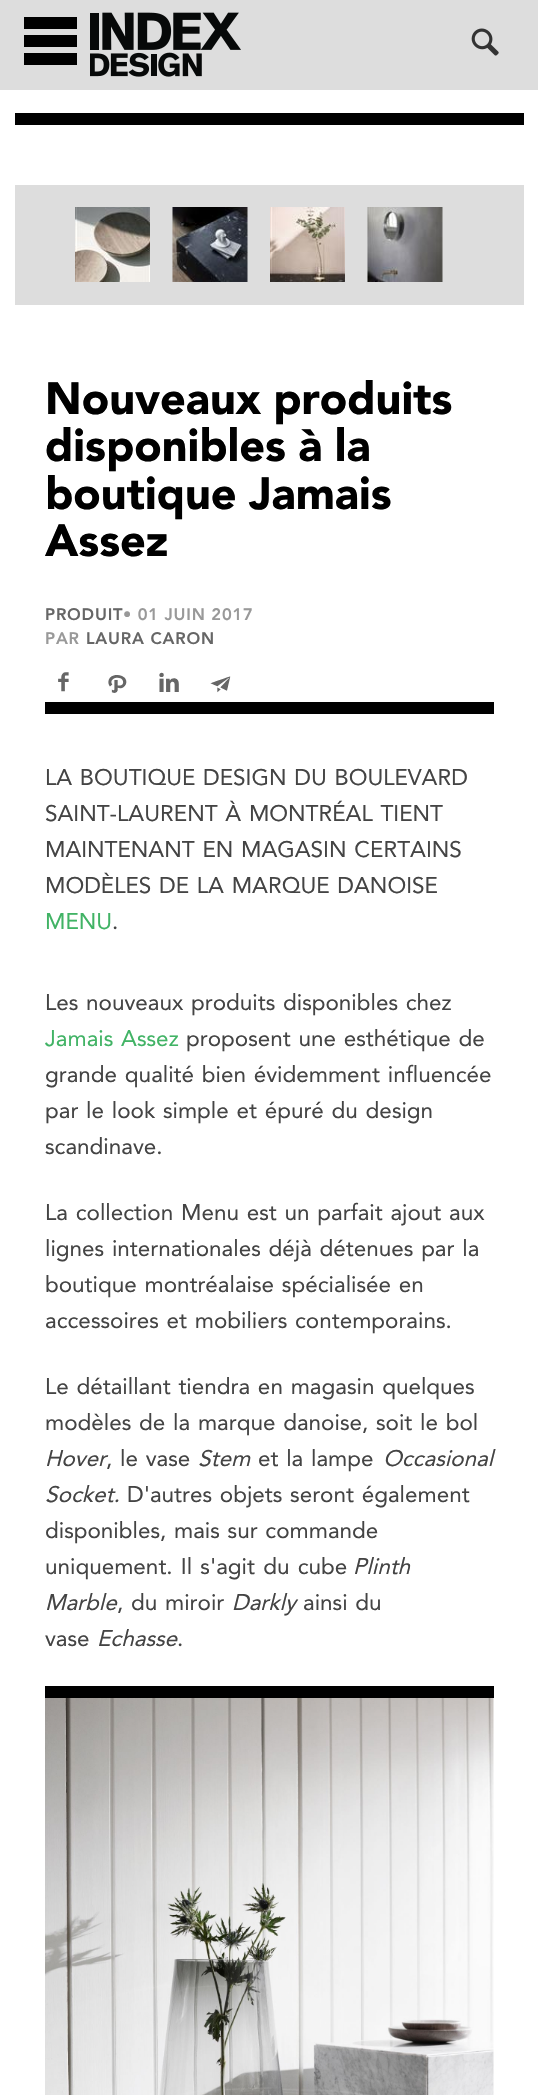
#include "include/core/SkBlurTypes.h"
#include "include/core/SkCanvas.h"
#include "include/core/SkData.h"
#include "include/core/SkFont.h"
#include "include/core/SkFontMgr.h"
#include "include/core/SkImage.h"
#include "include/core/SkMaskFilter.h"
#include "include/core/SkPaint.h"
#include "include/core/SkPathBuilder.h"
#include "include/core/SkTextBlob.h"
#include "include/effects/SkDashPathEffect.h"
#include "include/effects/SkGradientShader.h"
#include "include/utils/SkParsePath.h"

extern sk_sp<SkFontMgr> fontMgr;

void draw(SkCanvas* canvas) {
    SkPaint p;
    p.setAntiAlias(true);
    auto font = [&](const char* family, int weight, float size, bool italic = false) {
        SkFontStyle style(weight, SkFontStyle::kNormal_Width,
            italic ? SkFontStyle::kItalic_Slant : SkFontStyle::kUpright_Slant);
        SkFont result(fontMgr->matchFamilyStyle(family, style), size);
        result.setSubpixel(true);
        return result;
    };
    auto drawTracked = [&](const char* s, float x, float y, const SkFont& font, const SkPaint& ink, float letter, float word) {
        std::vector<SkGlyphID> glyphs(font.countText(s, strlen(s), SkTextEncoding::kUTF8));
        std::vector<float> xs(glyphs.size());
        font.textToGlyphs(s, strlen(s), SkTextEncoding::kUTF8, glyphs);
        font.getXPos(glyphs, xs, x);
        float extra = 0;
        for (size_t i = 0; i < glyphs.size(); i++) {
            xs[i] += extra;
            extra += letter + word * (glyphs[i] == font.unicharToGlyph(' '));
        }
        canvas->drawTextBlob(SkTextBlob::MakeFromPosHGlyphs(glyphs, xs, y, font), 0, 0, ink);
    };
    auto drawPhoto = [&](const char* path, float l, float t, float r, float b) {
        auto image = SkImages::DeferredFromEncodedData(SkData::MakeFromFileName(path));
        canvas->drawImageRect(image, SkRect::MakeLTRB(l, t, r, b), SkSamplingOptions());
    };
    canvas->clear(0xFFFFFFFF);
    {
        const struct { float l, t, r, b; SkColor color; } items[] = {
            {0, 0, 538, 90, 0xFFDDDDDD},
            {24, 17, 77, 29, 0xFF000000},
            {24, 35, 77, 47, 0xFF000000},
            {24, 53, 77, 65, 0xFF000000},
        };
        for (auto [l, t, r, b, color] : items) {
            p.setColor(color);
            canvas->drawRect(SkRect::MakeLTRB(l, t, r, b), p);
        }
    }
    drawPhoto("media/1.png", 90, 12, 241, 77);
    drawPhoto("media/2.png", 471, 28, 499, 56);
    canvas->drawRect(SkRect::MakeLTRB(15, 113, 524, 125), p);
    p.setColor(0xFFDDDDDD);
    canvas->drawRect(SkRect::MakeLTRB(15, 185, 524, 305), p);
    drawPhoto("media/3.png", 75, 207, 150, 282);
    drawPhoto("media/4.png", 172, 207, 248, 282);
    drawPhoto("media/5.png", 270, 207, 345, 282);
    drawPhoto("media/6.png", 367, 207, 443, 282);
    auto font1 = font("Avenir", 900, 45);
    p.setColor(0xFF000000);
    {
        const struct { const char* s; float x, y; } items[] = {
            {"Nouveaux produits", 45, 414},
            {"disponibles à la", 45, 461},
            {"boutique Jamais", 45, 509},
        };
        for (auto [s, x, y] : items) {
            drawTracked(s, x, y, font1, p, 0, -1);
        }
    }
    canvas->drawString("Assez", 45, 556, font1, p);
    canvas->drawRect(SkRect::MakeLTRB(45, 702, 494, 714), p);
    auto font2 = font("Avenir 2", 900, 16.5f);
    p.setColor(0xFF666666);
    drawTracked("PRODUIT", 45, 620, font2, p, 0.8f, 0);
    p.setColor(0xFF999999);
    drawTracked("• 01 JUIN 2017", 123, 620, font2, p, 0.8f, 0);
    drawTracked("PAR", 45, 644, font2, p, 0.8f, 0);
    p.setColor(0xFF666666);
    drawTracked("LAURA CARON", 86, 644, font2, p, 0.8f, 0);
    drawPhoto("media/7.png", 58, 672, 69, 692);
    drawPhoto("media/8.png", 108, 675, 127, 693);
    drawPhoto("media/9.png", 159, 672, 179, 692);
    drawPhoto("media/10.png", 210, 676, 231, 693);
    auto font3 = font("Avenir", 400, 22.5f);
    p.setColor(0xFF444444);
    {
        const struct { const char* s; float x, y; } items[] = {
            {"LA BOUTIQUE DESIGN DU BOULEVARD", 45, 785},
            {"SAINT-LAURENT À MONTRÉAL TIENT", 45, 821},
            {"MAINTENANT EN MAGASIN CERTAINS", 45, 857},
            {"MODÈLES DE LA MARQUE DANOISE", 45, 893},
        };
        for (auto [s, x, y] : items) {
            drawTracked(s, x, y, font3, p, 0, 1.5f);
        }
    }
    p.setColor(0xFF41B365);
    canvas->drawString("MENU", 45, 929, font3, p);
    p.setColor(0xFF444444);
    canvas->drawString(".", 112, 929, font3, p);
    drawTracked("Les nouveaux produits disponibles chez", 45, 1010, font3, p, 0, 1.5f);
    p.setColor(0xFF41B365);
    drawTracked("Jamais Assez", 45, 1046, font3, p, 0, 1.5f);
    p.setColor(0xFF444444);
    {
        const struct { const char* s; float x, y; } items[] = {
            {"proposent une esthétique de", 186, 1046},
            {"grande qualité bien évidemment influencée", 45, 1082},
            {"par le look simple et épuré du design", 45, 1118},
        };
        for (auto [s, x, y] : items) {
            drawTracked(s, x, y, font3, p, 0, 1.5f);
        }
    }
    canvas->drawString("scandinave.", 45, 1154, font3, p);
    {
        const struct { const char* s; float x, y; } items[] = {
            {"La collection Menu est un parfait ajout aux", 45, 1220},
            {"lignes internationales déjà détenues par la", 45, 1256},
            {"boutique montréalaise spécialisée en", 45, 1292},
            {"accessoires et mobiliers contemporains.", 45, 1328},
            {"Le détaillant tiendra en magasin quelques", 45, 1394},
            {"modèles de la marque danoise, soit le bol", 45, 1430},
        };
        for (auto [s, x, y] : items) {
            drawTracked(s, x, y, font3, p, 0, 1.5f);
        }
    }
    auto font4 = font("Avenir", 400, 22.5f, true);
    canvas->drawString("Hover", 45, 1466, font4, p);
    drawTracked(", le vase", 106, 1466, font3, p, 0, 1.5f);
    canvas->drawString("Stem", 198, 1466, font4, p);
    drawTracked("et la lampe", 258, 1466, font3, p, 0, 1.5f);
    canvas->drawString("Occasional", 383, 1466, font4, p);
    canvas->drawString("Socket.", 45, 1502, font4, p);
    drawTracked("D'autres objets seront également", 127, 1502, font3, p, 0, 1.5f);
    drawTracked("disponibles, mais sur commande", 45, 1538, font3, p, 0, 1.5f);
    drawTracked("uniquement. Il s'agit du cube", 45, 1574, font3, p, 0, 2);
    canvas->drawString("Plinth", 353, 1574, font4, p);
    canvas->drawString("Marble", 45, 1610, font4, p);
    drawTracked(", du miroir", 117, 1610, font3, p, 0, 1.5f);
    canvas->drawString("Darkly", 232, 1610, font4, p);
    drawTracked("ainsi du", 303, 1610, font3, p, 0, 1.5f);
    canvas->drawString("vase", 45, 1646, font3, p);
    canvas->drawString("Echasse", 97, 1646, font4, p);
    canvas->drawString(".", 177, 1646, font3, p);
    p.setColor(0xFF000000);
    canvas->drawRect(SkRect::MakeLTRB(45, 1686, 494, 1698), p);
    drawPhoto("media/11.png", 45, 1698, 494, 2095);
}
